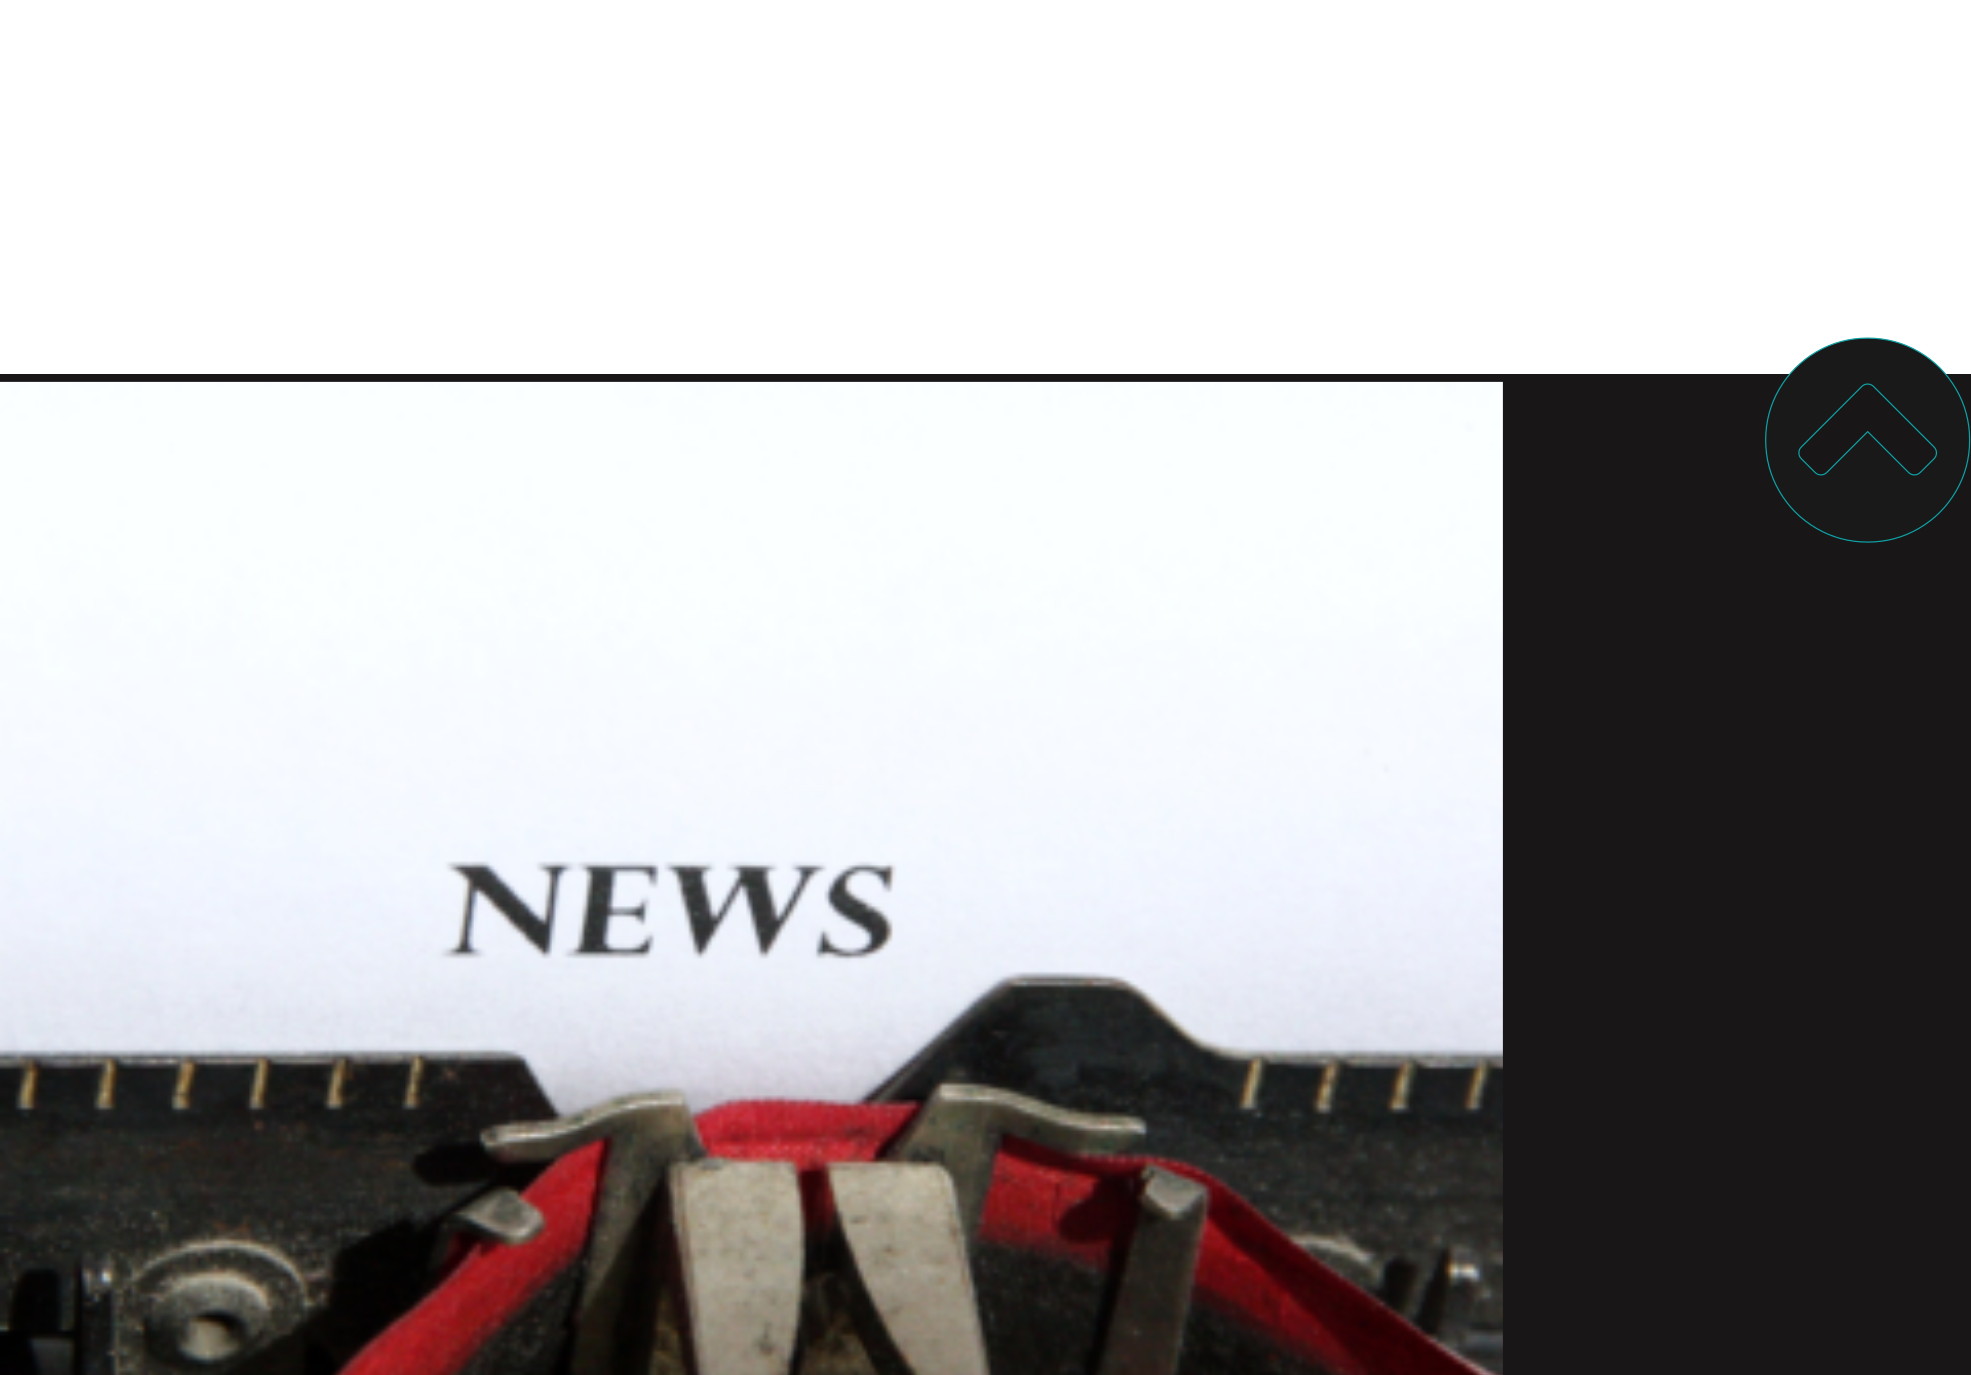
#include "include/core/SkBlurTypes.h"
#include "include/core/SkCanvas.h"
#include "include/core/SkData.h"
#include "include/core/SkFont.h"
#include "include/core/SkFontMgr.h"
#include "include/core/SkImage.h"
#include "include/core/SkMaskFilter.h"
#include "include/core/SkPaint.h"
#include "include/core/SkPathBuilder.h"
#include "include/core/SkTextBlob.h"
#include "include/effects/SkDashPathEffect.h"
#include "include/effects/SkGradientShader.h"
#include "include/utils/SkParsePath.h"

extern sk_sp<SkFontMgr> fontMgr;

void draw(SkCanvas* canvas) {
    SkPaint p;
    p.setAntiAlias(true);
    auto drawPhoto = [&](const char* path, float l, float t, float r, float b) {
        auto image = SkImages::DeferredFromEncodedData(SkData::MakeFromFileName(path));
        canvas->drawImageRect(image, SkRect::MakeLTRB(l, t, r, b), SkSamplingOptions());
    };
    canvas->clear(0xFFFFFFFF);
    p.setColor(0xFF181616);
    canvas->drawRect(SkRect::MakeLTRB(0, 374, 1971, 1375), p);
    drawPhoto("media/1.png", 1765, 337, 1971, 543);
    drawPhoto("media/2.png", 0, 381, 1503, 1375);
}
